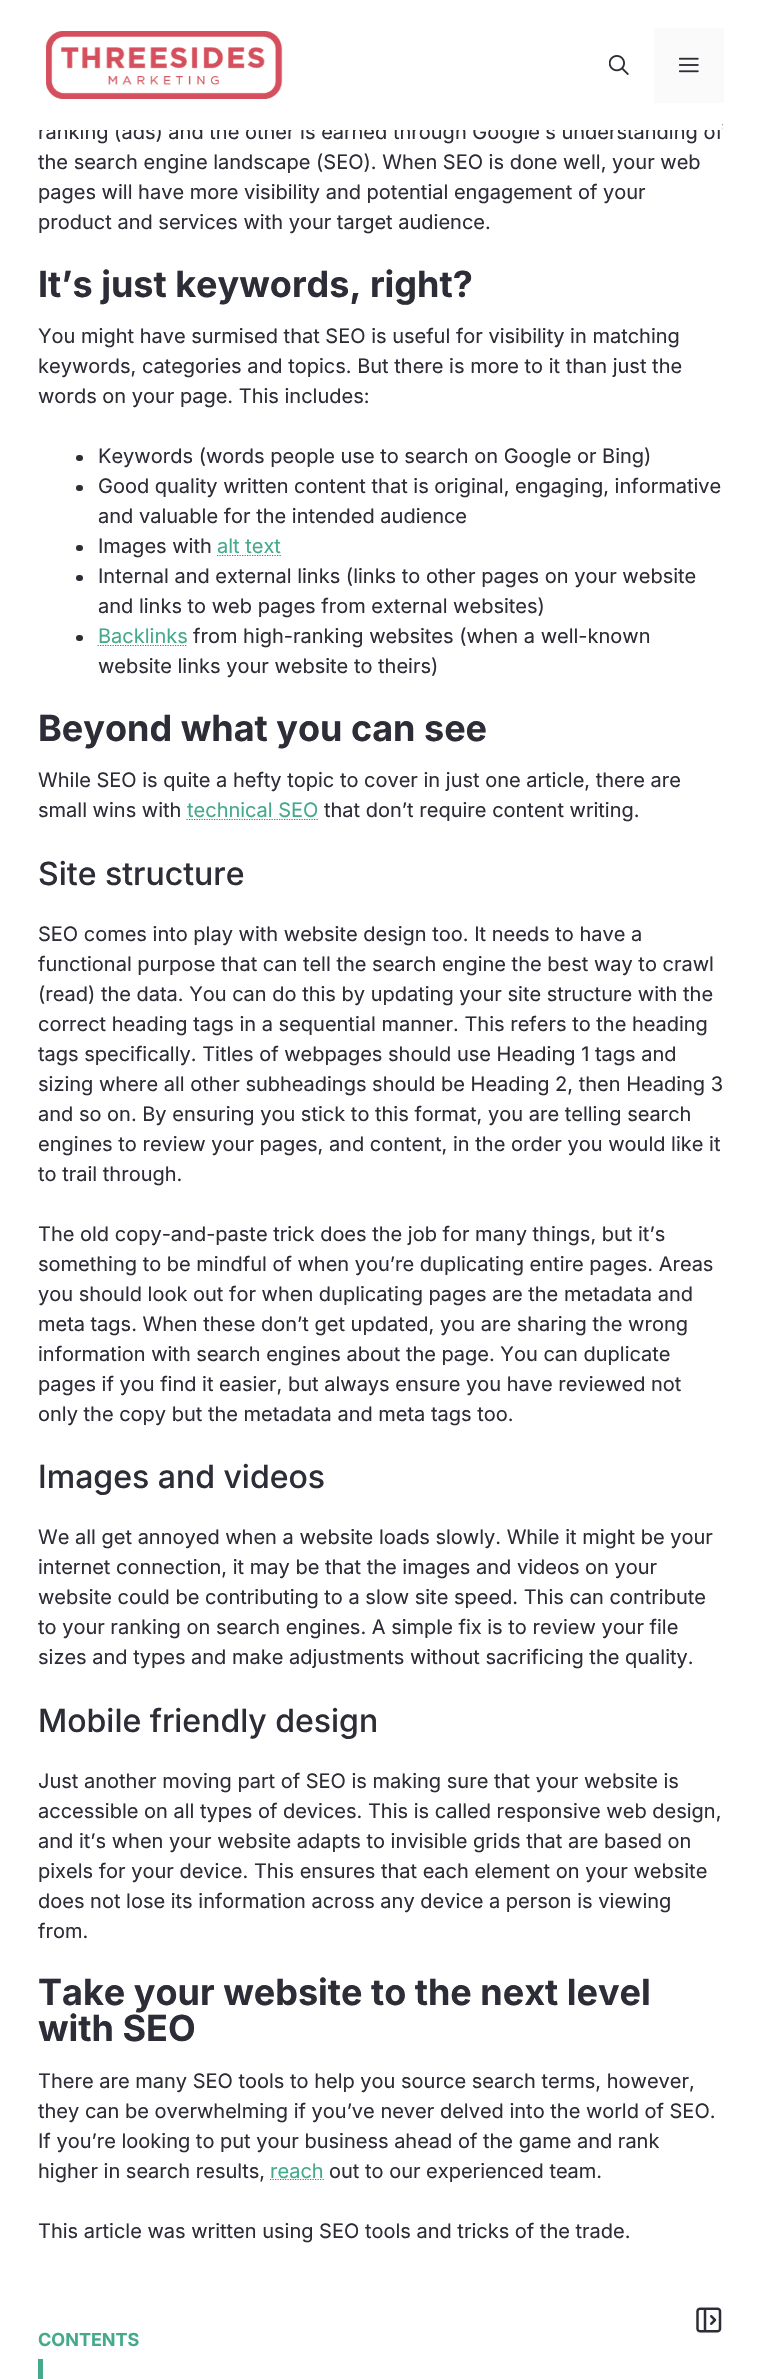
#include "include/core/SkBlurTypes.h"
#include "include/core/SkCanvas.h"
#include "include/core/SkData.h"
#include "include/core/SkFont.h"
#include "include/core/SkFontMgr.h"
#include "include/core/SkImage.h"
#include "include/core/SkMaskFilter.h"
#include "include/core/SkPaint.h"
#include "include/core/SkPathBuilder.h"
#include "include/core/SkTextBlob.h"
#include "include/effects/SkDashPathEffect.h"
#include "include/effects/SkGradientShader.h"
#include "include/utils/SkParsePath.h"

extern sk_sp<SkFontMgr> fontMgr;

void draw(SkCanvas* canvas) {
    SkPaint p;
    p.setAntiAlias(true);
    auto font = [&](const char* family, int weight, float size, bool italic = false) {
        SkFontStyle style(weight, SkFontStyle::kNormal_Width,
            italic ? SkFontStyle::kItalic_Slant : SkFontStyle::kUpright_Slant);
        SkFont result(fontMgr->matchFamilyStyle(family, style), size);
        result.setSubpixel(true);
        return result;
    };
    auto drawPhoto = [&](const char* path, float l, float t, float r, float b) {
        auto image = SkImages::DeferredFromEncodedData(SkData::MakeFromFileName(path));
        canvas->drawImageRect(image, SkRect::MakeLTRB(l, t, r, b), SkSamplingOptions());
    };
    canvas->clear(0xFFFFFFFF);
    auto font1 = font("Inter", 400, 20);
    p.setColor(0xFF2D2D37);
    canvas->drawString("ranking (ads) and the other is earned through Google’s understanding of", 38, 139, font1, p);
    p.setColor(0xFFFFFFFF);
    canvas->drawRect(SkRect::MakeLTRB(39, 123, 722, 130), p);
    drawPhoto("media/1.png", 46, 31, 283, 99);
    drawPhoto("media/2.png", 609, 55, 629, 75);
    p.setColor(0xFFFAFAFA);
    canvas->drawRect(SkRect::MakeLTRB(654, 28, 724, 103), p);
    drawPhoto("media/3.png", 679, 57, 699, 73);
    p.setColor(0xFF2D2D37);
    {
        const struct { const char* s; float x, y; } items[] = {
            {"the search engine landscape (SEO). When SEO is done well, your web", 38, 169},
            {"pages will have more visibility and potential engagement of your", 38, 199},
            {"product and services with your target audience.", 38, 229},
        };
        for (auto [s, x, y] : items) {
            canvas->drawString(s, x, y, font1, p);
        }
    }
    auto font2 = font("Inter", 700, 36);
    canvas->drawString("It’s just keywords, right?", 38, 297, font2, p);
    {
        const struct { const char* s; float x, y; } items[] = {
            {"You might have surmised that SEO is useful for visibility in matching", 38, 343},
            {"keywords, categories and topics. But there is more to it than just the", 38, 373},
            {"words on your page. This includes:", 38, 403},
        };
        for (auto [s, x, y] : items) {
            canvas->drawString(s, x, y, font1, p);
        }
    }
    canvas->drawRoundRect(SkRect::MakeLTRB(76, 455, 83, 461), 3, 3, p);
    canvas->drawString("Keywords (words people use to search on Google or Bing)", 98, 463, font1, p);
    canvas->drawRoundRect(SkRect::MakeLTRB(76, 485, 83, 491), 3, 3, p);
    canvas->drawString("Good quality written content that is original, engaging, informative", 98, 493, font1, p);
    canvas->drawString("and valuable for the intended audience", 98, 523, font1, p);
    canvas->drawRoundRect(SkRect::MakeLTRB(76, 545, 83, 551), 3, 3, p);
    canvas->drawString("Images with", 98, 553, font1, p);
    p.setColor(0xFF44AA8B);
    canvas->drawString("alt text", 217, 553, font1, p);
    p.setStyle(SkPaint::kStroke_Style);
    p.setStrokeWidth(1.2f);
    p.setColor(0xFF6B6B72);
    p.setPathEffect(SkDashPathEffect::Make({{1.25f, 1.25f}}, 0));
    canvas->drawPath(SkPathBuilder().moveTo(217, 555.5f).lineTo(281, 555.5f).detach(), p);
    p.setPathEffect(nullptr);
    p.setStyle(SkPaint::kFill_Style);
    p.setColor(0xFF2D2D37);
    canvas->drawRoundRect(SkRect::MakeLTRB(76, 575, 83, 581), 3, 3, p);
    canvas->drawString("Internal and external links (links to other pages on your website", 98, 583, font1, p);
    canvas->drawString("and links to web pages from external websites)", 98, 613, font1, p);
    canvas->drawRoundRect(SkRect::MakeLTRB(76, 635, 83, 641), 3, 3, p);
    p.setColor(0xFF44AA8B);
    canvas->drawString("Backlinks", 98, 643, font1, p);
    p.setStyle(SkPaint::kStroke_Style);
    p.setColor(0xFF6B6B72);
    p.setPathEffect(SkDashPathEffect::Make({{1.25f, 1.25f}}, 0));
    canvas->drawPath(SkPathBuilder().moveTo(97.5f, 645.5f).lineTo(187.5f, 645.5f).detach(), p);
    p.setPathEffect(nullptr);
    p.setStyle(SkPaint::kFill_Style);
    p.setColor(0xFF2D2D37);
    canvas->drawString("from high-ranking websites (when a well-known", 193, 643, font1, p);
    canvas->drawString("website links your website to theirs)", 98, 673, font1, p);
    canvas->drawString("Beyond what you can see", 38, 741, font2, p);
    canvas->drawString("While SEO is quite a hefty topic to cover in just one article, there are", 38, 787, font1, p);
    canvas->drawString("small wins with", 38, 817, font1, p);
    p.setColor(0xFF44AA8B);
    canvas->drawString("technical SEO", 187, 817, font1, p);
    p.setStyle(SkPaint::kStroke_Style);
    p.setColor(0xFF6B6B72);
    p.setPathEffect(SkDashPathEffect::Make({{1.25f, 1.25f}}, 0));
    canvas->drawPath(SkPathBuilder().moveTo(186.5f, 819.5f).lineTo(318, 819.5f).detach(), p);
    p.setPathEffect(nullptr);
    p.setStyle(SkPaint::kFill_Style);
    p.setColor(0xFF2D2D37);
    canvas->drawString("that don’t require content writing.", 324, 817, font1, p);
    auto font3 = font("Inter", 500, 32);
    canvas->drawString("Site structure", 38, 885, font3, p);
    {
        const struct { const char* s; float x, y; } items[] = {
            {"SEO comes into play with website design too. It needs to have a", 38, 941},
            {"functional purpose that can tell the search engine the best way to crawl", 38, 971},
            {"(read) the data. You can do this by updating your site structure with the", 38, 1001},
            {"correct heading tags in a sequential manner. This refers to the heading", 38, 1031},
            {"tags specifically. Titles of webpages should use Heading 1 tags and", 38, 1061},
            {"sizing where all other subheadings should be Heading 2, then Heading 3", 38, 1091},
            {"and so on. By ensuring you stick to this format, you are telling search", 38, 1121},
            {"engines to review your pages, and content, in the order you would like it", 38, 1151},
            {"to trail through.", 38, 1181},
            {"The old copy-and-paste trick does the job for many things, but it’s", 38, 1241},
            {"something to be mindful of when you’re duplicating entire pages. Areas", 38, 1271},
            {"you should look out for when duplicating pages are the metadata and", 38, 1301},
            {"meta tags. When these don’t get updated, you are sharing the wrong", 38, 1331},
            {"information with search engines about the page. You can duplicate", 38, 1361},
            {"pages if you find it easier, but always ensure you have reviewed not", 38, 1391},
            {"only the copy but the metadata and meta tags too.", 38, 1421},
        };
        for (auto [s, x, y] : items) {
            canvas->drawString(s, x, y, font1, p);
        }
    }
    canvas->drawString("Images and videos", 38, 1488, font3, p);
    {
        const struct { const char* s; float x, y; } items[] = {
            {"We all get annoyed when a website loads slowly. While it might be your", 38, 1544},
            {"internet connection, it may be that the images and videos on your", 38, 1574},
            {"website could be contributing to a slow site speed. This can contribute", 38, 1604},
            {"to your ranking on search engines. A simple fix is to review your file", 38, 1634},
            {"sizes and types and make adjustments without sacrificing the quality.", 38, 1664},
        };
        for (auto [s, x, y] : items) {
            canvas->drawString(s, x, y, font1, p);
        }
    }
    canvas->drawString("Mobile friendly design", 38, 1732, font3, p);
    {
        const struct { const char* s; float x, y; } items[] = {
            {"Just another moving part of SEO is making sure that your website is", 38, 1788},
            {"accessible on all types of devices. This is called responsive web design,", 38, 1818},
            {"and it’s when your website adapts to invisible grids that are based on", 38, 1848},
            {"pixels for your device. This ensures that each element on your website", 38, 1878},
            {"does not lose its information across any device a person is viewing", 38, 1908},
            {"from.", 38, 1938},
        };
        for (auto [s, x, y] : items) {
            canvas->drawString(s, x, y, font1, p);
        }
    }
    canvas->drawString("Take your website to the next level", 38, 2005, font2, p);
    canvas->drawString("with SEO", 38, 2041, font2, p);
    {
        const struct { const char* s; float x, y; } items[] = {
            {"There are many SEO tools to help you source search terms, however,", 38, 2088},
            {"they can be overwhelming if you’ve never delved into the world of SEO.", 38, 2118},
            {"If you’re looking to put your business ahead of the game and rank", 38, 2148},
            {"higher in search results,", 38, 2178},
        };
        for (auto [s, x, y] : items) {
            canvas->drawString(s, x, y, font1, p);
        }
    }
    p.setStyle(SkPaint::kStroke_Style);
    p.setColor(0xFF6B6B72);
    p.setPathEffect(SkDashPathEffect::Make({{1.25f, 1.25f}}, 0));
    canvas->drawPath(SkPathBuilder().moveTo(270, 2179.5f).lineTo(324, 2179.5f).detach(), p);
    p.setPathEffect(nullptr);
    p.setStyle(SkPaint::kFill_Style);
    p.setColor(0xFF44AA8B);
    canvas->drawString("reach", 270, 2178, font1, p);
    p.setColor(0xFF2D2D37);
    canvas->drawString("out to our experienced team.", 329, 2178, font1, p);
    canvas->drawString("This article was written using SEO tools and tricks of the trade.", 38, 2238, font1, p);
    drawPhoto("media/4.png", 696, 2307, 722, 2333);
    auto font4 = font("Inter", 700, 18);
    p.setColor(0xFF44AA8B);
    canvas->drawString("CONTENTS", 38, 2346, font4, p);
    canvas->drawRect(SkRect::MakeLTRB(38, 2359, 43, 2379), p);
}
